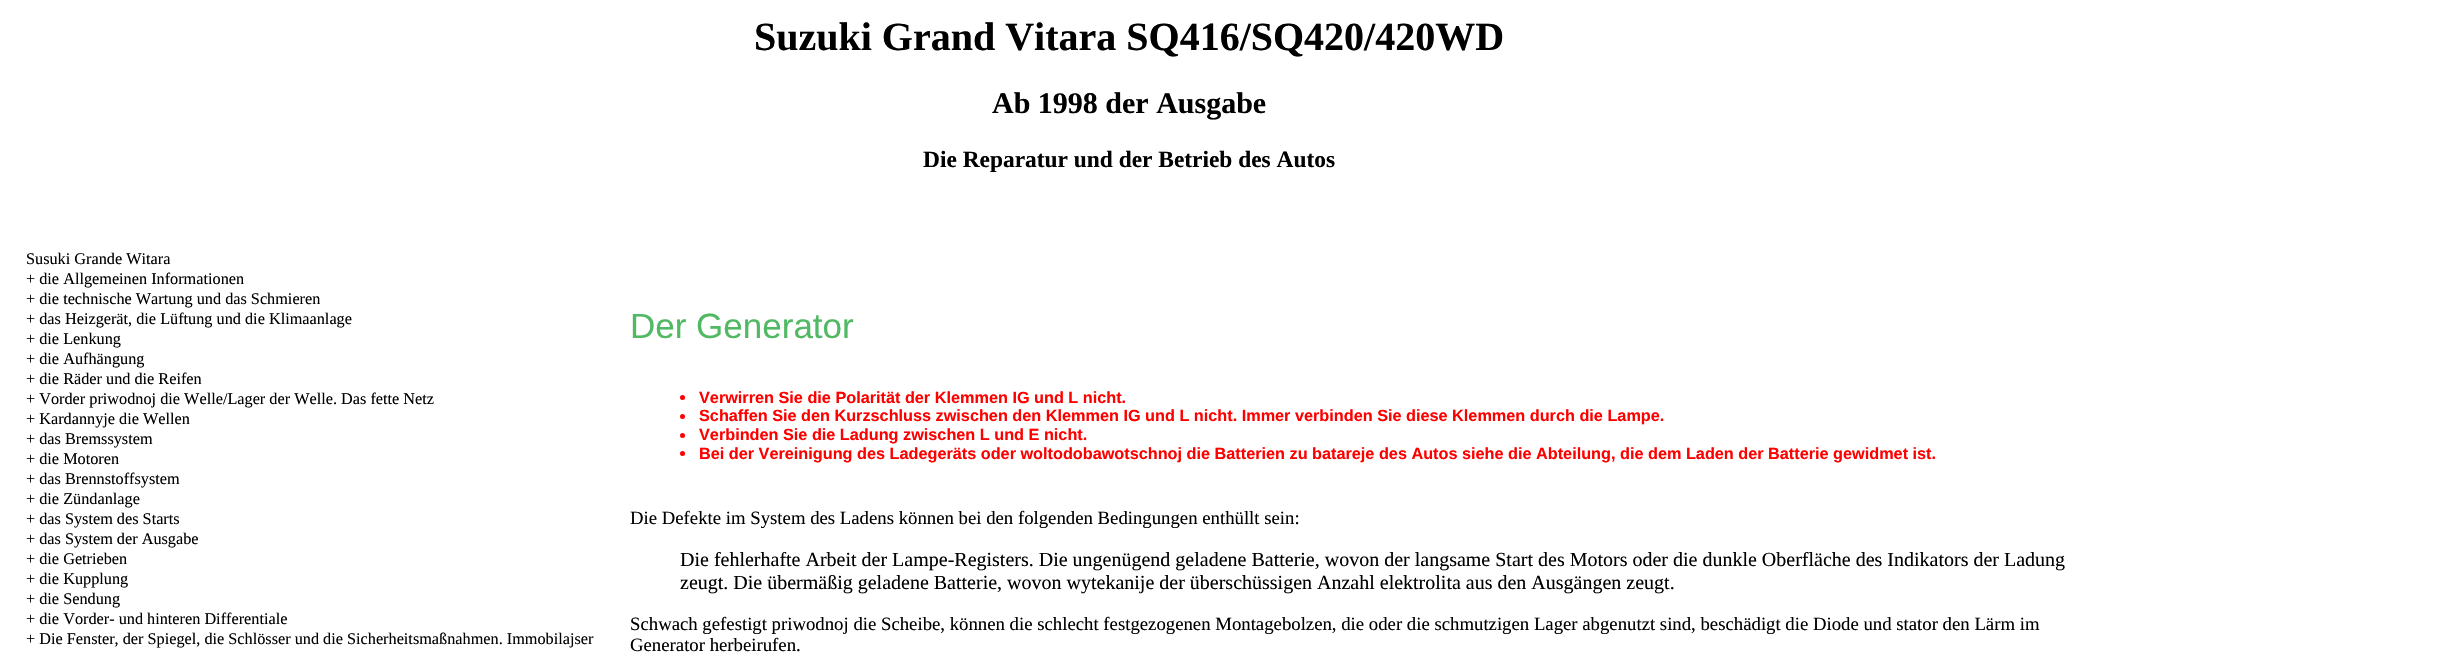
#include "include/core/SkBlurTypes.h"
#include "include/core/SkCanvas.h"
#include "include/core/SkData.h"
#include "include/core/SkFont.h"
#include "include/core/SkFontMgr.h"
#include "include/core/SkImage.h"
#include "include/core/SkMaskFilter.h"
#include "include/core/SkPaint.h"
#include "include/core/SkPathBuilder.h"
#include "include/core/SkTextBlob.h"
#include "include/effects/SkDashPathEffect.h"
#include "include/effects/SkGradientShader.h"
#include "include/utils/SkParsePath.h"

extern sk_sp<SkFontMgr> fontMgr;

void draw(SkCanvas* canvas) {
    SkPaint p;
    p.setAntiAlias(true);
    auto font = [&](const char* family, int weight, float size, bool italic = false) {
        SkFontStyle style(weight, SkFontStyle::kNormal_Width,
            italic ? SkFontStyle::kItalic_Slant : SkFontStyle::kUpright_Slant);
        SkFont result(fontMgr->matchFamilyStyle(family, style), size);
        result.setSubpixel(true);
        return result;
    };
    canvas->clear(0xFFFFFFFF);
    auto font1 = font("Liberation Serif", 700, 40);
    p.setColor(0xFF000000);
    canvas->drawString("Suzuki Grand Vitara SQ416/SQ420/420WD", 754, 50, font1, p);
    auto font2 = font("Liberation Serif", 700, 30);
    canvas->drawString("Ab 1998 der Ausgabe", 992, 113, font2, p);
    auto font3 = font("Liberation Serif", 700, 23.4f);
    canvas->drawString("Die Reparatur und der Betrieb des Autos", 923, 167, font3, p);
    auto font4 = font("Liberation Serif", 400, 16.25f);
    {
        const struct { const char* s; float x, y; } items[] = {
            {"Susuki Grande Witara", 26, 264},
            {"+ die Allgemeinen Informationen", 26, 284},
            {"+ die technische Wartung und das Schmieren", 26, 304},
            {"+ das Heizgerät, die Lüftung und die Klimaanlage", 26, 324},
            {"+ die Lenkung", 26, 344},
            {"+ die Aufhängung", 26, 364},
            {"+ die Räder und die Reifen", 26, 384},
            {"+ Vorder priwodnoj die Welle/Lager der Welle. Das fette Netz", 26, 404},
            {"+ Kardannyje die Wellen", 26, 424},
            {"+ das Bremssystem", 26, 444},
            {"+ die Motoren", 26, 464},
            {"+ das Brennstoffsystem", 26, 484},
            {"+ die Zündanlage", 26, 504},
            {"+ das System des Starts", 26, 524},
            {"+ das System der Ausgabe", 26, 544},
            {"+ die Getrieben", 26, 564},
            {"+ die Kupplung", 26, 584},
            {"+ die Sendung", 26, 604},
            {"+ die Vorder- und hinteren Differentiale", 26, 624},
            {"+ Die Fenster, der Spiegel, die Schlösser und die Sicherheitsmaßnahmen. Immobilajser", 26, 644},
        };
        for (auto [s, x, y] : items) {
            canvas->drawString(s, x, y, font4, p);
        }
    }
    auto font5 = font("Liberation Sans", 400, 35);
    p.setColor(0xFF51B963);
    canvas->drawString("Der Generator", 630, 338, font5, p);
    p.setColor(0xFFFF0000);
    canvas->drawCircle(682.5f, 397.5f, 2.5f, p);
    auto font6 = font("Liberation Sans", 700, 16.25f);
    canvas->drawString("Verwirren Sie die Polarität der Klemmen IG und L nicht.", 699, 403, font6, p);
    canvas->drawCircle(682.5f, 416.5f, 2.5f, p);
    canvas->drawString("Schaffen Sie den Kurzschluss zwischen den Klemmen IG und L nicht. Immer verbinden Sie diese Klemmen durch die Lampe.", 699, 421, font6, p);
    canvas->drawCircle(682.5f, 435.5f, 2.5f, p);
    canvas->drawString("Verbinden Sie die Ladung zwischen L und E nicht.", 699, 440, font6, p);
    canvas->drawCircle(682.5f, 453.5f, 2.5f, p);
    canvas->drawString("Bei der Vereinigung des Ladegeräts oder woltodobawotschnoj die Batterien zu batareje des Autos siehe die Abteilung, die dem Laden der Batterie gewidmet ist.", 699, 459, font6, p);
    auto font7 = font("Liberation Serif", 400, 18.75f);
    p.setColor(0xFF000000);
    canvas->drawString("Die Defekte im System des Ladens können bei den folgenden Bedingungen enthüllt sein:", 630, 524, font7, p);
    auto font8 = font("Liberation Serif", 400, 20);
    canvas->drawString("Die fehlerhafte Arbeit der Lampe-Registers. Die ungenügend geladene Batterie, wovon der langsame Start des Motors oder die dunkle Oberfläche des Indikators der Ladung", 680, 566, font8, p);
    canvas->drawString("zeugt. Die übermäßig geladene Batterie, wovon wytekanije der überschüssigen Anzahl elektrolita aus den Ausgängen zeugt.", 680, 589, font8, p);
    canvas->drawString("Schwach gefestigt priwodnoj die Scheibe, können die schlecht festgezogenen Montagebolzen, die oder die schmutzigen Lager abgenutzt sind, beschädigt die Diode und stator den Lärm im", 630, 630, font7, p);
    canvas->drawString("Generator herbeirufen.", 630, 651, font7, p);
}
